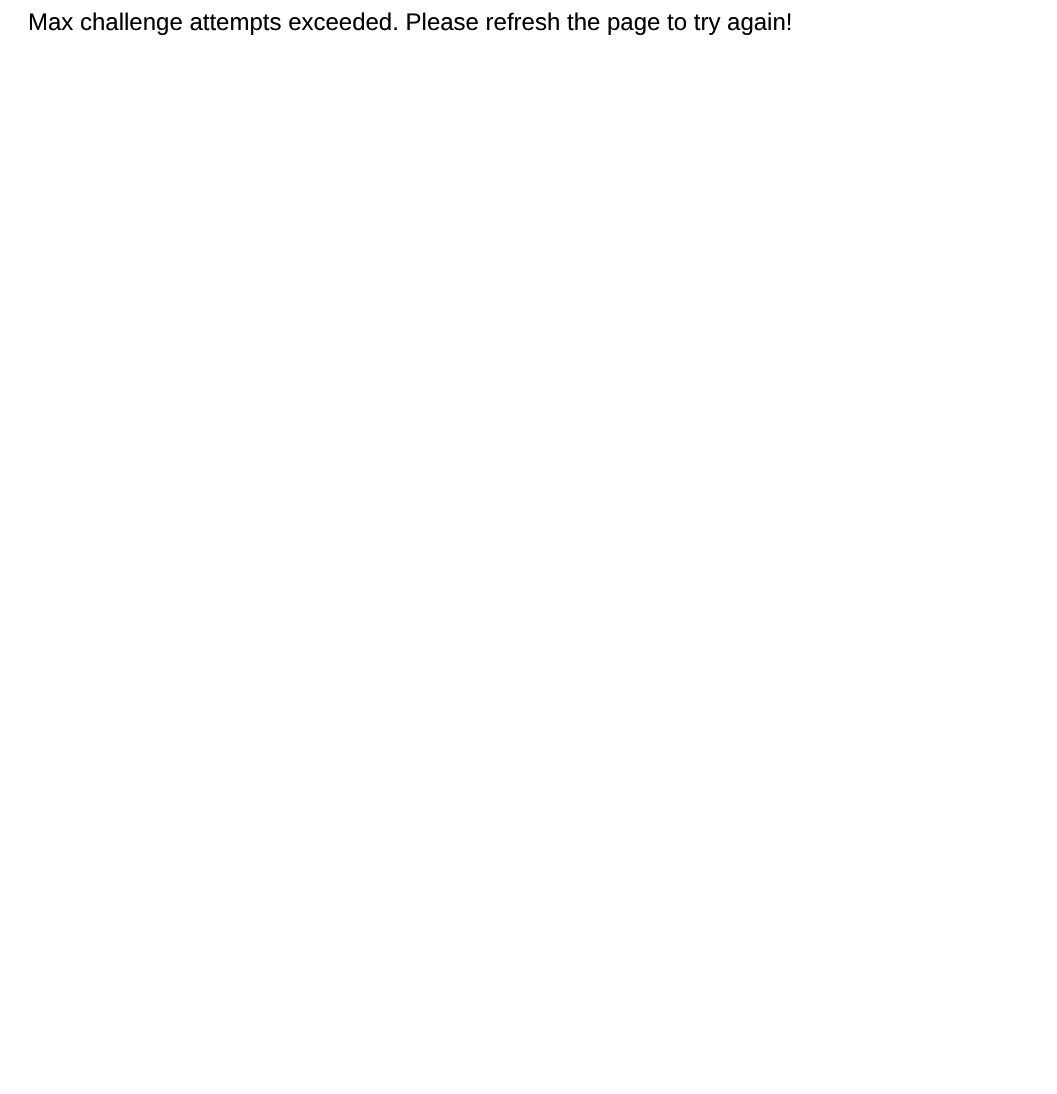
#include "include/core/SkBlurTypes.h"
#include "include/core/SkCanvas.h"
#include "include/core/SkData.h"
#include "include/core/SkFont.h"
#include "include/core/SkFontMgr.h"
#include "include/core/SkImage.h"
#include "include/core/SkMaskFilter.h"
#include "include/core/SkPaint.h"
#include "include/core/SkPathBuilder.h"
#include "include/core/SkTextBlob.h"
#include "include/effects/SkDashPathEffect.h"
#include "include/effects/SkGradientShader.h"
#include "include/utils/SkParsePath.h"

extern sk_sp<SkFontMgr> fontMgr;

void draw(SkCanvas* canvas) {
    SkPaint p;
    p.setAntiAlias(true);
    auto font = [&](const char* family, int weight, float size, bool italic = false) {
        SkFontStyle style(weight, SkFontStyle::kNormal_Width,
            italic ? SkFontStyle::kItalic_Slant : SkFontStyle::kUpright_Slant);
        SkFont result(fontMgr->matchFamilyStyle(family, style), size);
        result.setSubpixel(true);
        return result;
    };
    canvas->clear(0xFFFFFFFF);
    auto font1 = font("Liberation Sans", 400, 24);
    p.setColor(0xFF000000);
    canvas->drawString("Max challenge attempts exceeded. Please refresh the page to try again!", 28, 30, font1, p);
}
